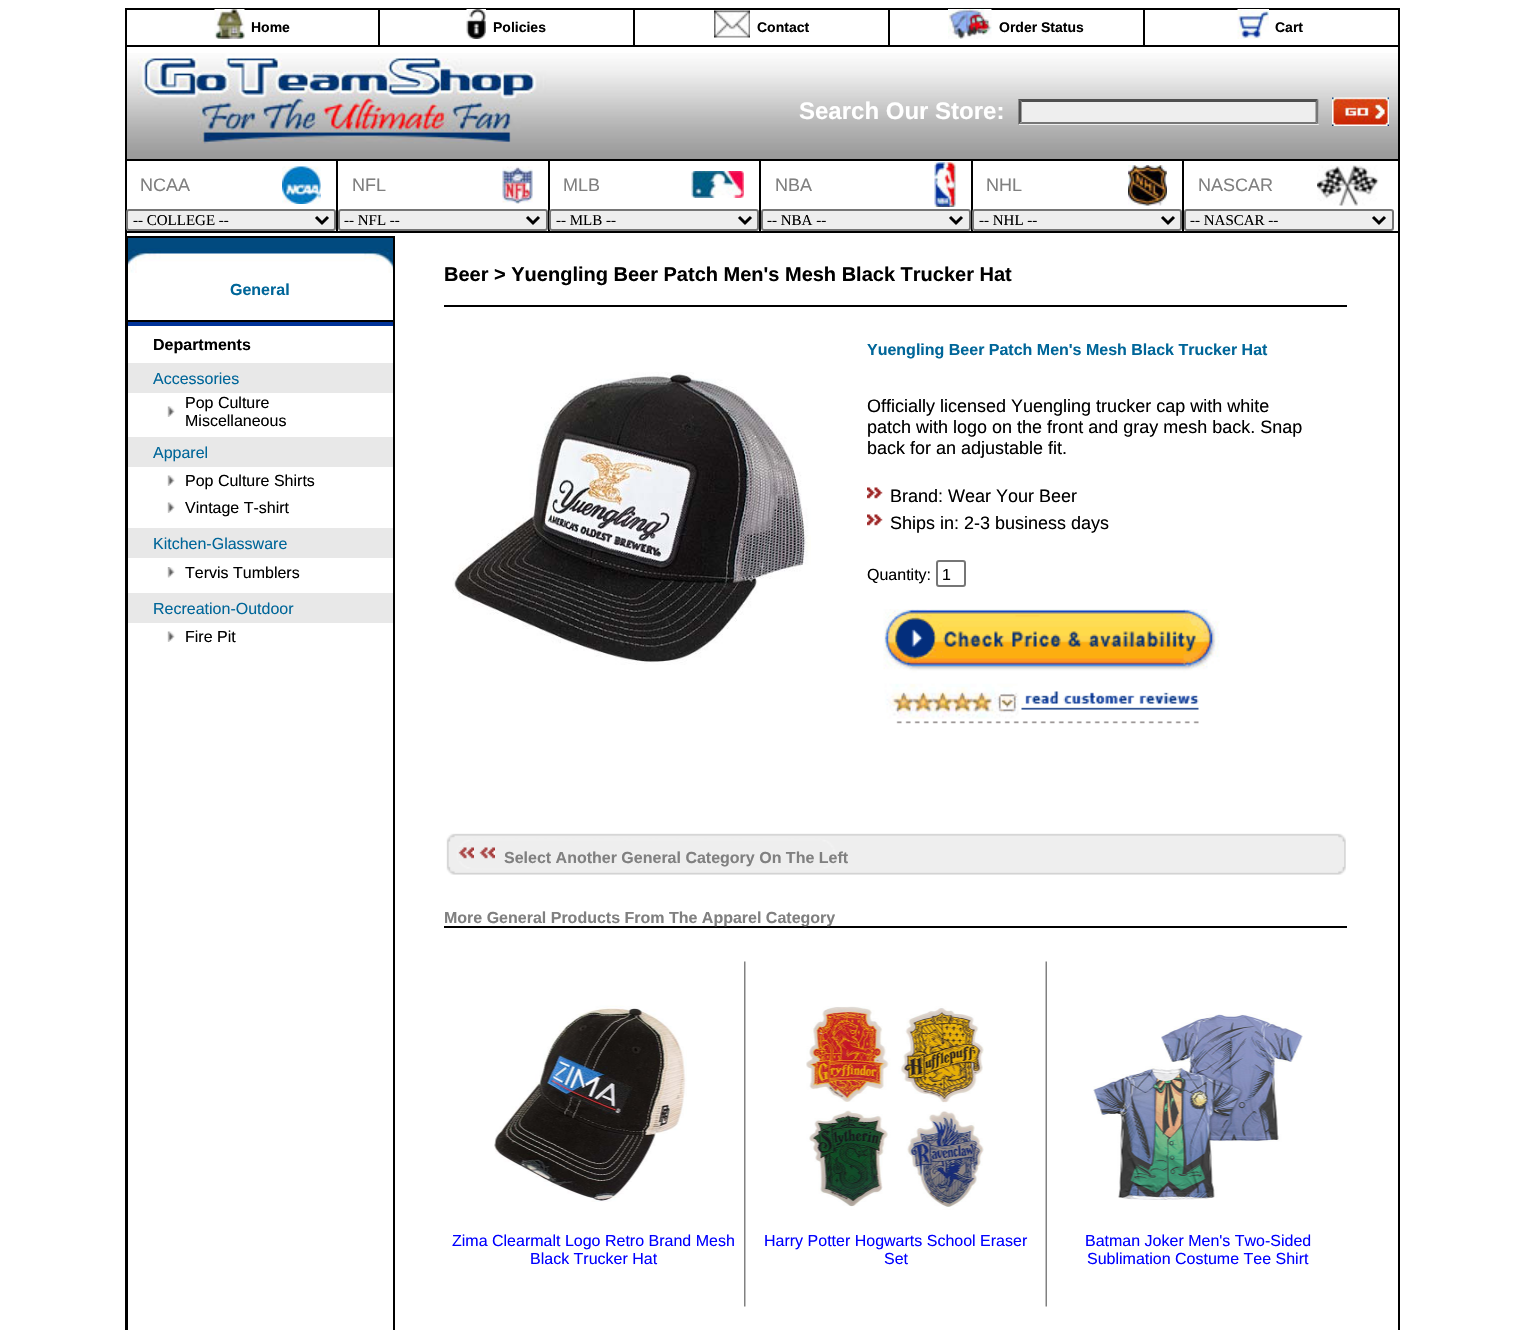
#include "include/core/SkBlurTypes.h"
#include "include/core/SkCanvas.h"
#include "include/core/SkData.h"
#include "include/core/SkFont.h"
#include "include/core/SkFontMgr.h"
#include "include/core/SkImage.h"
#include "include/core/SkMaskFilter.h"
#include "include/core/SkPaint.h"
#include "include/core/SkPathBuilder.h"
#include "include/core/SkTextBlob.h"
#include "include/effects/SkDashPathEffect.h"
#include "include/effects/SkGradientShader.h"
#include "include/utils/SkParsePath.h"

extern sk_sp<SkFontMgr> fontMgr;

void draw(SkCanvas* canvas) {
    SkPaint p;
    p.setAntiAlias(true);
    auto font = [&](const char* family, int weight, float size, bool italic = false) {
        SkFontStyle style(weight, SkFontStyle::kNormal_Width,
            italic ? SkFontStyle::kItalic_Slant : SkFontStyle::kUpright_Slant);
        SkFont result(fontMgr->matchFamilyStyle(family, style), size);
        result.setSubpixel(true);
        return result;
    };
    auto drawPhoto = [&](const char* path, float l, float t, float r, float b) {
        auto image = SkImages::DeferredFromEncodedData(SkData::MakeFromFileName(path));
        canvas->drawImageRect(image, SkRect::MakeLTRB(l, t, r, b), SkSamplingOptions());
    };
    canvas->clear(0xFFFFFFFF);
    {
        const struct { float l, t, r, b; SkColor color; } items[] = {
            {125, 8, 1400, 10, 0xFF000000},
            {1398, 8, 1400, 1330, 0xFF000000},
            {126, 231, 1398, 233, 0xFF000000},
            {126, 236, 395, 238, 0xFF000000},
            {393, 236, 395, 1330, 0xFF000000},
            {126, 322, 393, 326, 0xFF003399},
            {127, 236, 128, 1330, 0xFF000000},
            {126, 320, 395, 322, 0xFF000000},
            {125, 8, 127, 1330, 0xFF000000},
        };
        for (auto [l, t, r, b, color] : items) {
            p.setColor(color);
            canvas->drawRect(SkRect::MakeLTRB(l, t, r, b), p);
        }
    }
    drawPhoto("media/1.png", 214, 9, 245, 39);
    auto font1 = font("Liberation Sans", 700, 14);
    canvas->drawString("Home", 251, 32, font1, p);
    canvas->drawRect(SkRect::MakeLTRB(125, 45, 1400, 47), p);
    canvas->drawRect(SkRect::MakeLTRB(378, 8, 380, 47), p);
    drawPhoto("media/2.png", 466, 9, 486, 39);
    canvas->drawString("Policies", 493, 32, font1, p);
    canvas->drawRect(SkRect::MakeLTRB(633, 8, 635, 47), p);
    drawPhoto("media/3.png", 714, 10, 750, 38);
    canvas->drawString("Contact", 757, 32, font1, p);
    canvas->drawRect(SkRect::MakeLTRB(888, 8, 890, 47), p);
    drawPhoto("media/4.png", 948, 9, 992, 39);
    canvas->drawString("Order Status", 999, 32, font1, p);
    canvas->drawRect(SkRect::MakeLTRB(1143, 8, 1145, 47), p);
    drawPhoto("media/5.png", 1237, 9, 1269, 39);
    canvas->drawString("Cart", 1275, 32, font1, p);
    drawPhoto("media/6.png", 127, 53, 1398, 159);
    canvas->drawRect(SkRect::MakeLTRB(125, 159, 1400, 161), p);
    auto font2 = font("Liberation Sans", 700, 24);
    p.setColor(0xFFFFFFFF);
    canvas->drawString("Search Our Store:", 799, 119, font2, p);
    p.setColor(0xFFEEEEEE);
    canvas->drawRect(SkRect::MakeLTRB(1019, 99, 1319, 125), p);
    p.setColor(0xFF4F4F4F);
    canvas->drawPath(SkPathBuilder().moveTo(1018, 99).lineTo(1318, 99).lineTo(1316, 102).lineTo(1022, 102).close().detach(), p);
    p.setColor(0xFF767676);
    canvas->drawPath(SkPathBuilder().moveTo(1318.5f, 99).lineTo(1318.5f, 124.5f).lineTo(1315.5f, 121.5f).lineTo(1315.5f, 102).close().detach(), p);
    canvas->drawPath(SkPathBuilder().moveTo(1318, 124).lineTo(1018, 124).lineTo(1022, 122).lineTo(1316, 122).close().detach(), p);
    p.setColor(0xFF4F4F4F);
    canvas->drawPath(SkPathBuilder().moveTo(1018.5f, 124.5f).lineTo(1018.5f, 99).lineTo(1021.5f, 102).lineTo(1021.5f, 121.5f).close().detach(), p);
    drawPhoto("media/7.png", 1332, 97, 1389, 126);
    auto font3 = font("Liberation Sans", 400, 18);
    p.setColor(0xFF808080);
    canvas->drawString("NCAA", 140, 191, font3, p);
    drawPhoto("media/8.png", 282, 166, 321, 204);
    p.setColor(0xFFEEEEEE);
    canvas->drawRoundRect(SkRect::MakeLTRB(127, 210, 335, 230), 2, 2, p);
    p.setStyle(SkPaint::kStroke_Style);
    p.setStrokeWidth(2);
    p.setColor(0xFF767676);
    canvas->drawRoundRect(SkRect::MakeLTRB(127, 210, 335, 230), 2, 2, p);
    p.setStrokeWidth(3);
    p.setColor(0xFF000000);
    canvas->drawPath(SkPathBuilder().moveTo(316, 217).lineTo(322, 223).lineTo(328, 217).detach(), p);
    auto font4 = font("Liberation Serif", 400, 15);
    p.setStyle(SkPaint::kFill_Style);
    canvas->drawString("-- COLLEGE --", 133, 225, font4, p);
    canvas->drawRect(SkRect::MakeLTRB(336, 161, 338, 231), p);
    p.setColor(0xFF808080);
    canvas->drawString("NFL", 352, 191, font3, p);
    drawPhoto("media/9.png", 502, 166, 533, 204);
    p.setColor(0xFFEEEEEE);
    canvas->drawRoundRect(SkRect::MakeLTRB(339, 210, 547, 230), 2, 2, p);
    p.setStyle(SkPaint::kStroke_Style);
    p.setStrokeWidth(2);
    p.setColor(0xFF767676);
    canvas->drawRoundRect(SkRect::MakeLTRB(339, 210, 547, 230), 2, 2, p);
    p.setStrokeWidth(3);
    p.setColor(0xFF000000);
    canvas->drawPath(SkPathBuilder().moveTo(527, 217).lineTo(533, 223).lineTo(539, 217).detach(), p);
    p.setStyle(SkPaint::kFill_Style);
    canvas->drawString("-- NFL --", 344, 225, font4, p);
    canvas->drawRect(SkRect::MakeLTRB(548, 161, 550, 231), p);
    p.setColor(0xFF808080);
    canvas->drawString("MLB", 563, 191, font3, p);
    drawPhoto("media/10.png", 691, 171, 744, 198);
    p.setColor(0xFFEEEEEE);
    canvas->drawRoundRect(SkRect::MakeLTRB(550, 210, 758, 230), 2, 2, p);
    p.setStyle(SkPaint::kStroke_Style);
    p.setStrokeWidth(2);
    p.setColor(0xFF767676);
    canvas->drawRoundRect(SkRect::MakeLTRB(550, 210, 758, 230), 2, 2, p);
    p.setStrokeWidth(3);
    p.setColor(0xFF000000);
    canvas->drawPath(SkPathBuilder().moveTo(739, 217).lineTo(745, 223).lineTo(751, 217).detach(), p);
    p.setStyle(SkPaint::kFill_Style);
    canvas->drawString("-- MLB --", 556, 225, font4, p);
    canvas->drawRect(SkRect::MakeLTRB(759, 161, 761, 231), p);
    p.setColor(0xFF808080);
    canvas->drawString("NBA", 775, 191, font3, p);
    drawPhoto("media/11.png", 934, 162, 956, 207);
    p.setColor(0xFFEEEEEE);
    canvas->drawRoundRect(SkRect::MakeLTRB(762, 210, 970, 230), 2, 2, p);
    p.setStyle(SkPaint::kStroke_Style);
    p.setStrokeWidth(2);
    p.setColor(0xFF767676);
    canvas->drawRoundRect(SkRect::MakeLTRB(762, 210, 970, 230), 2, 2, p);
    p.setStrokeWidth(3);
    p.setColor(0xFF000000);
    canvas->drawPath(SkPathBuilder().moveTo(950, 217).lineTo(956, 223).lineTo(962, 217).detach(), p);
    p.setStyle(SkPaint::kFill_Style);
    canvas->drawString("-- NBA --", 767, 225, font4, p);
    canvas->drawRect(SkRect::MakeLTRB(971, 161, 973, 231), p);
    p.setColor(0xFF808080);
    canvas->drawString("NHL", 986, 191, font3, p);
    drawPhoto("media/12.png", 1128, 165, 1167, 206);
    p.setColor(0xFFEEEEEE);
    canvas->drawRoundRect(SkRect::MakeLTRB(973, 210, 1181, 230), 2, 2, p);
    p.setStyle(SkPaint::kStroke_Style);
    p.setStrokeWidth(2);
    p.setColor(0xFF767676);
    canvas->drawRoundRect(SkRect::MakeLTRB(973, 210, 1181, 230), 2, 2, p);
    p.setStrokeWidth(3);
    p.setColor(0xFF000000);
    canvas->drawPath(SkPathBuilder().moveTo(1162, 217).lineTo(1168, 223).lineTo(1174, 217).detach(), p);
    p.setStyle(SkPaint::kFill_Style);
    canvas->drawString("-- NHL --", 979, 225, font4, p);
    canvas->drawRect(SkRect::MakeLTRB(1182, 161, 1184, 231), p);
    p.setColor(0xFF808080);
    canvas->drawString("NASCAR", 1198, 191, font3, p);
    drawPhoto("media/13.png", 1317, 165, 1379, 206);
    p.setColor(0xFFEEEEEE);
    canvas->drawRoundRect(SkRect::MakeLTRB(1185, 210, 1393, 230), 2, 2, p);
    p.setStyle(SkPaint::kStroke_Style);
    p.setStrokeWidth(2);
    p.setColor(0xFF767676);
    canvas->drawRoundRect(SkRect::MakeLTRB(1185, 210, 1393, 230), 2, 2, p);
    p.setStrokeWidth(3);
    p.setColor(0xFF000000);
    canvas->drawPath(SkPathBuilder().moveTo(1373, 217).lineTo(1379, 223).lineTo(1385, 217).detach(), p);
    p.setStyle(SkPaint::kFill_Style);
    canvas->drawString("-- NASCAR --", 1190, 225, font4, p);
    drawPhoto("media/14.png", 128, 238, 393, 273);
    auto font5 = font("Liberation Sans", 700, 16);
    p.setColor(0xFF006699);
    canvas->drawString("General", 230, 295, font5, p);
    p.setColor(0xFF000000);
    canvas->drawString("Departments", 153, 350, font5, p);
    p.setColor(0xFFE8E8E8);
    canvas->drawRect(SkRect::MakeLTRB(128, 363, 393, 393), p);
    auto font6 = font("Liberation Sans", 400, 16);
    p.setColor(0xFF006699);
    canvas->drawString("Accessories", 153, 384, font6, p);
    drawPhoto("media/15.png", 167, 406, 175, 417);
    p.setColor(0xFF000000);
    canvas->drawString("Pop Culture", 185, 408, font6, p);
    canvas->drawString("Miscellaneous", 185, 426, font6, p);
    p.setColor(0xFFE8E8E8);
    canvas->drawRect(SkRect::MakeLTRB(128, 437, 393, 467), p);
    p.setColor(0xFF006699);
    canvas->drawString("Apparel", 153, 458, font6, p);
    drawPhoto("media/15.png", 167, 475, 175, 486);
    p.setColor(0xFF000000);
    canvas->drawString("Pop Culture Shirts", 185, 486, font6, p);
    drawPhoto("media/15.png", 167, 502, 175, 513);
    canvas->drawString("Vintage T-shirt", 185, 513, font6, p);
    p.setColor(0xFFE8E8E8);
    canvas->drawRect(SkRect::MakeLTRB(128, 528, 393, 558), p);
    p.setColor(0xFF006699);
    canvas->drawString("Kitchen-Glassware", 153, 549, font6, p);
    drawPhoto("media/16.png", 167, 567, 175, 578);
    p.setColor(0xFF000000);
    canvas->drawString("Tervis Tumblers", 185, 578, font6, p);
    p.setColor(0xFFE8E8E8);
    canvas->drawRect(SkRect::MakeLTRB(128, 593, 393, 623), p);
    p.setColor(0xFF006699);
    canvas->drawString("Recreation-Outdoor", 153, 614, font6, p);
    drawPhoto("media/15.png", 167, 631, 175, 642);
    p.setColor(0xFF000000);
    canvas->drawString("Fire Pit", 185, 642, font6, p);
    auto font7 = font("Liberation Sans", 700, 20);
    canvas->drawString("Beer > Yuengling Beer Patch Men's Mesh Black Trucker Hat", 444, 281, font7, p);
    canvas->drawRect(SkRect::MakeLTRB(444, 305, 1347, 307), p);
    drawPhoto("media/17.png", 452, 372, 811, 665);
    p.setColor(0xFF006699);
    canvas->drawString("Yuengling Beer Patch Men's Mesh Black Trucker Hat", 867, 355, font5, p);
    p.setColor(0xFF000000);
    {
        const struct { const char* s; float x, y; } items[] = {
            {"Officially licensed Yuengling trucker cap with white", 867, 412},
            {"patch with logo on the front and gray mesh back. Snap", 867, 433},
            {"back for an adjustable fit.", 867, 454},
        };
        for (auto [s, x, y] : items) {
            canvas->drawString(s, x, y, font3, p);
        }
    }
    drawPhoto("media/18.png", 867, 487, 883, 499);
    canvas->drawString("Brand: Wear Your Beer", 890, 502, font3, p);
    drawPhoto("media/18.png", 867, 514, 883, 526);
    canvas->drawString("Ships in: 2-3 business days", 890, 529, font3, p);
    canvas->drawString("Quantity:", 867, 580, font6, p);
    p.setStyle(SkPaint::kStroke_Style);
    p.setStrokeWidth(2);
    p.setColor(0xFF767676);
    canvas->drawRoundRect(SkRect::MakeLTRB(937, 561, 965, 586), 2, 2, p);
    p.setStyle(SkPaint::kFill_Style);
    p.setColor(0xFF000000);
    canvas->drawString("1", 942, 580, font6, p);
    drawPhoto("media/19.png", 883, 609, 1220, 724);
    drawPhoto("media/20.png", 446, 833, 1346, 875);
    drawPhoto("media/21.png", 458, 847, 474, 861);
    drawPhoto("media/22.png", 479, 847, 495, 859);
    p.setColor(0xFF808080);
    canvas->drawString("Select Another General Category On The Left", 504, 863, font5, p);
    p.setColor(0xFF000000);
    canvas->drawRect(SkRect::MakeLTRB(444, 926, 1347, 928), p);
    p.setColor(0xFF808080);
    canvas->drawString("More General Products From The Apparel Category", 444, 923, font5, p);
    drawPhoto("media/23.png", 494, 1005, 687, 1202);
    p.setColor(0xFF0000FF);
    canvas->drawString("Zima Clearmalt Logo Retro Brand Mesh", 452, 1246, font6, p);
    canvas->drawString("Black Trucker Hat", 530, 1264, font6, p);
    drawPhoto("media/24.png", 744, 961, 746, 1307);
    drawPhoto("media/25.png", 806, 1006, 984, 1210);
    canvas->drawString("Harry Potter Hogwarts School Eraser", 764, 1246, font6, p);
    canvas->drawString("Set", 884, 1264, font6, p);
    drawPhoto("media/26.png", 1045, 961, 1047, 1307);
    drawPhoto("media/27.png", 1093, 1014, 1303, 1200);
    canvas->drawString("Batman Joker Men's Two-Sided", 1085, 1246, font6, p);
    canvas->drawString("Sublimation Costume Tee Shirt", 1087, 1264, font6, p);
}
